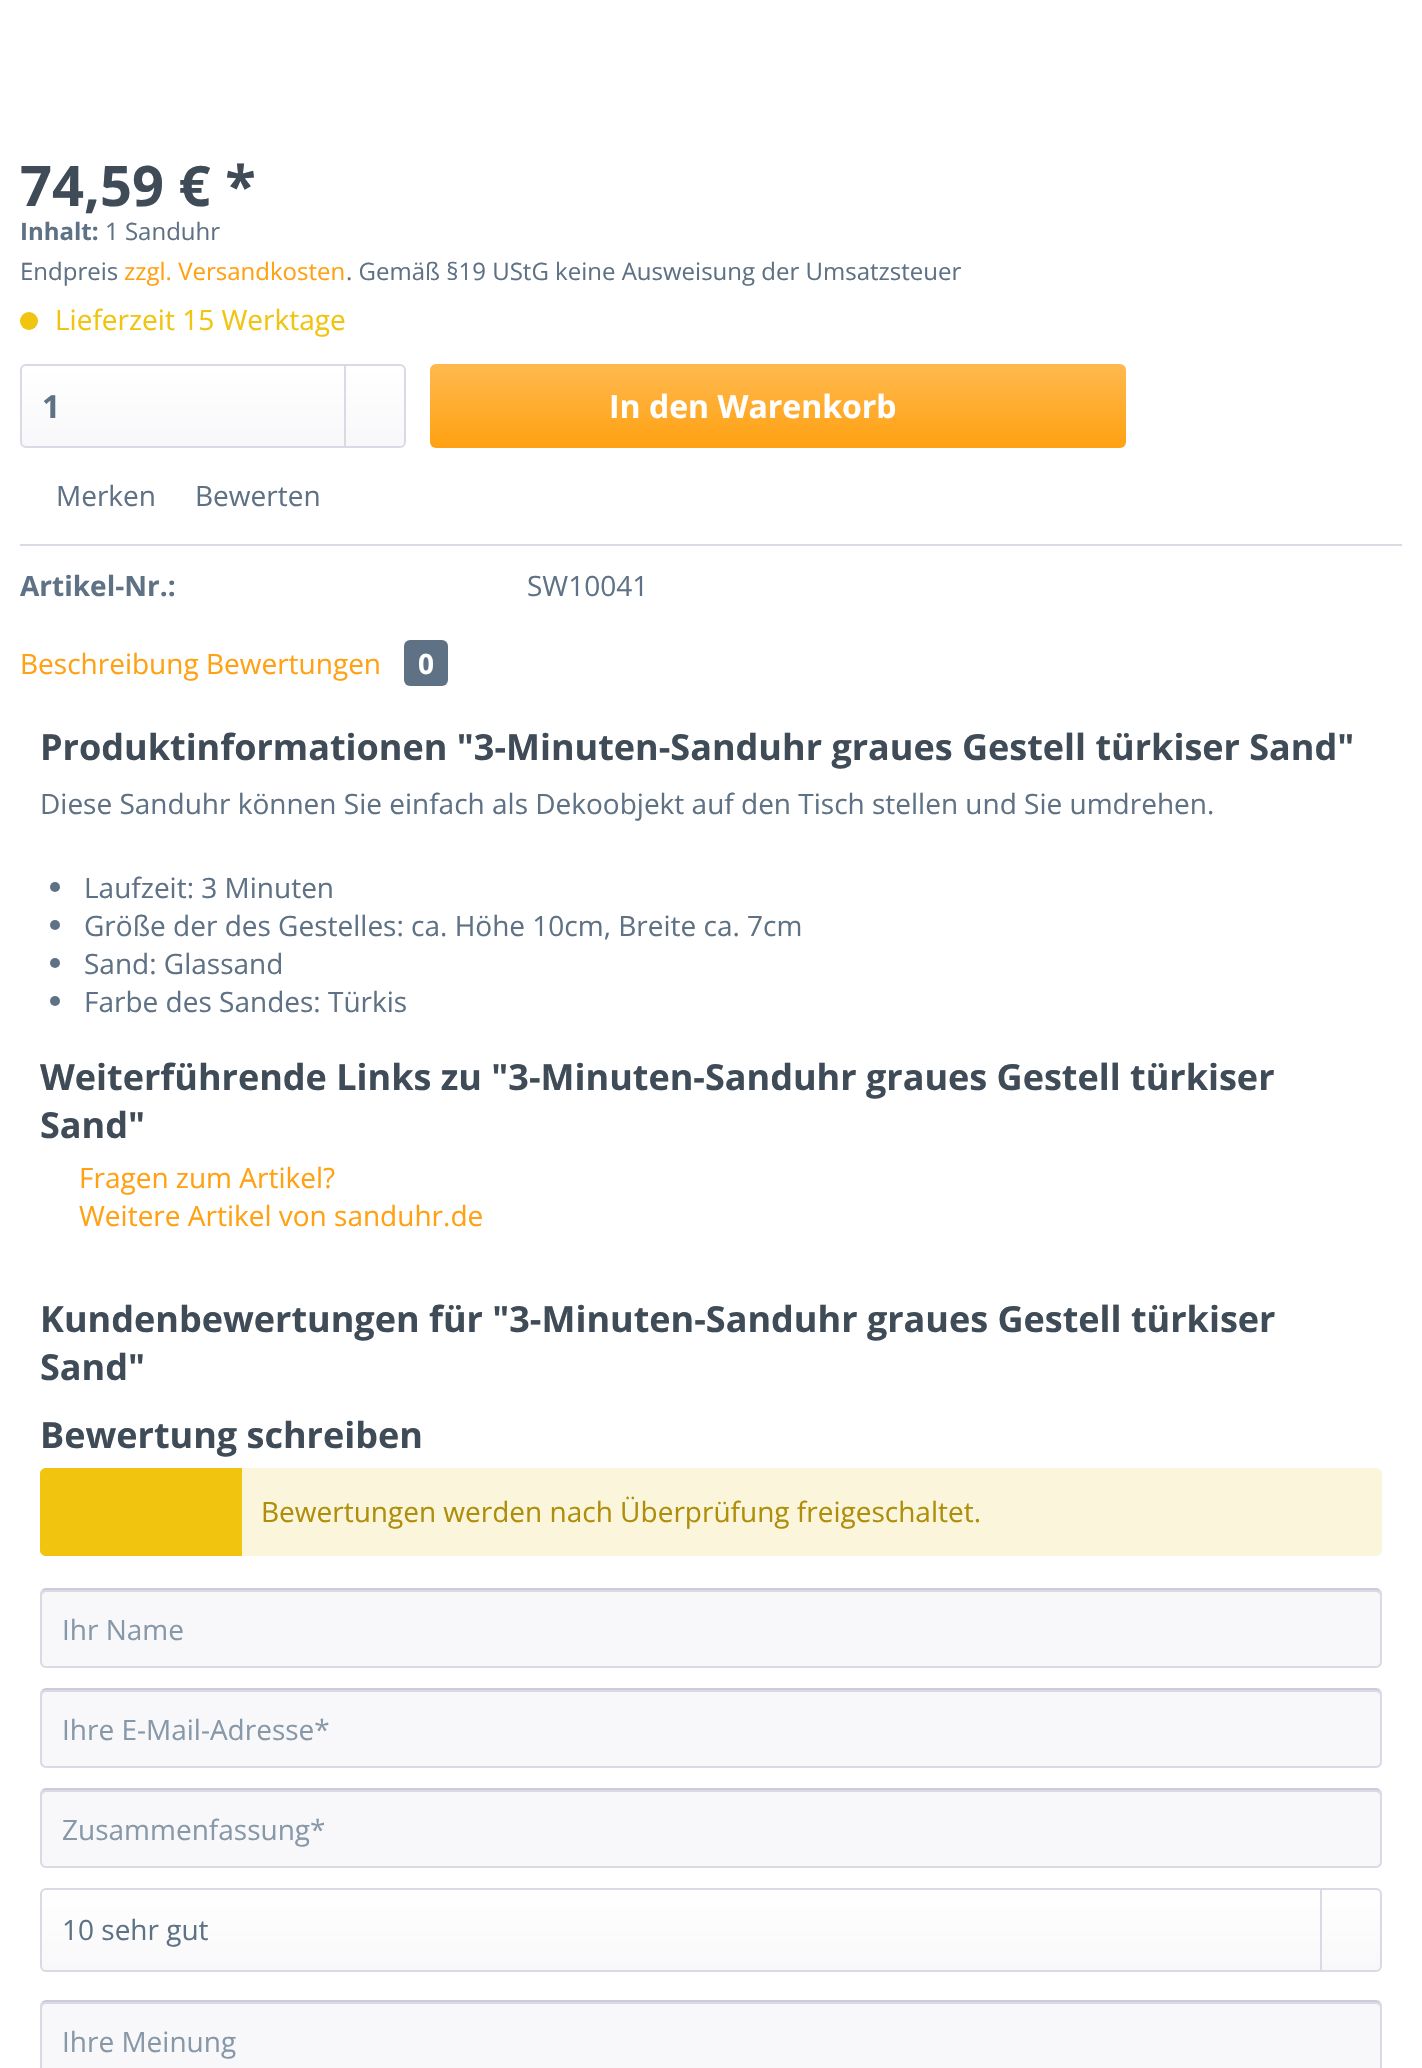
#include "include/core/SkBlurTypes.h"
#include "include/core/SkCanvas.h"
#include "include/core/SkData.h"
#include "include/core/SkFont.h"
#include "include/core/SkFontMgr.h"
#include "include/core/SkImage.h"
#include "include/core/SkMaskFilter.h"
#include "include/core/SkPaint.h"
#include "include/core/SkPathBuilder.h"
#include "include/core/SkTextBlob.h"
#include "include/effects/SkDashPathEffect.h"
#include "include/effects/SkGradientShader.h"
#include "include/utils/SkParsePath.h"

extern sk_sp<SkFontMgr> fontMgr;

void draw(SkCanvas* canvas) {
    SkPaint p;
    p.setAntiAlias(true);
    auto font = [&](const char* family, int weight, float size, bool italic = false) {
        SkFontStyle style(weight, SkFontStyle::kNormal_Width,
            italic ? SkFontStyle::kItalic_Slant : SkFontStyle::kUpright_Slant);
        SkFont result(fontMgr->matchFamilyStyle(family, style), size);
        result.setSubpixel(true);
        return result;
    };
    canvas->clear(0xFFFFFFFF);
    auto font1 = font("Open Sans", 700, 56);
    p.setColor(0xFF3F4C58);
    canvas->drawString("74,59 € *", 20, 206, font1, p);
    auto font2 = font("Open Sans", 700, 24);
    p.setColor(0xFF5F7285);
    canvas->drawString("Inhalt:", 20, 240, font2, p);
    auto font3 = font("Open Sans", 400, 24);
    canvas->drawString("1 Sanduhr", 105, 240, font3, p);
    canvas->drawString("Endpreis", 20, 280, font3, p);
    p.setColor(0xFFFFA112);
    canvas->drawString("zzgl. Versandkosten", 124, 280, font3, p);
    p.setColor(0xFF5F7285);
    canvas->drawString(". Gemäß §19 UStG keine Ausweisung der Umsatzsteuer", 346, 280, font3, p);
    p.setColor(0xFFF1C40F);
    canvas->drawCircle(29, 321, 9, p);
    auto font4 = font("Open Sans", 400, 28);
    canvas->drawString("Lieferzeit 15 Werktage", 55, 330, font4, p);
    {
        const SkColor colors[] = {0xFFFFFFFF, 0xFFF8F8FA};
        const float stops[] = {0, 1};
        const SkPoint ends[] = {{213, 366}, {213, 446}};
        p.setShader(SkGradientShader::MakeLinear(ends, colors, stops, 2, SkTileMode::kClamp));
        p.setAlpha(255);
    }
    canvas->drawRoundRect(SkRect::MakeLTRB(22, 366, 404, 446), 4, 4, p);
    p.setStyle(SkPaint::kStroke_Style);
    p.setStrokeWidth(2);
    p.setShader(nullptr);
    p.setColor(0xFFDADAE5);
    canvas->drawRoundRect(SkRect::MakeLTRB(21, 365, 405, 447), 5, 5, p);
    auto font5 = font("Open Sans", 700, 32);
    p.setStyle(SkPaint::kFill_Style);
    p.setColor(0xFF5F7285);
    canvas->drawString("1", 42, 418, font5, p);
    p.setColor(0xFFDADAE5);
    canvas->drawRect(SkRect::MakeLTRB(344, 366, 346, 446), p);
    {
        const SkColor colors[] = {0xFFFFB94F, 0xFFFFA112};
        const float stops[] = {0, 1};
        const SkPoint ends[] = {{778, 364}, {778, 448}};
        p.setShader(SkGradientShader::MakeLinear(ends, colors, stops, 2, SkTileMode::kClamp));
        p.setAlpha(255);
    }
    canvas->drawRoundRect(SkRect::MakeLTRB(430, 364, 1126, 448), 6, 6, p);
    p.setShader(nullptr);
    p.setColor(0xFFFFFFFF);
    canvas->drawString("In den Warenkorb", 609, 418, font5, p);
    p.setColor(0xFFDADAE5);
    canvas->drawRect(SkRect::MakeLTRB(20, 544, 1402, 546), p);
    p.setColor(0xFF5F7285);
    canvas->drawString("Merken", 56, 506, font4, p);
    canvas->drawString("Bewerten", 195, 506, font4, p);
    auto font6 = font("Open Sans", 700, 28);
    canvas->drawString("Artikel-Nr.:", 20, 596, font6, p);
    canvas->drawString("SW10041", 527, 596, font4, p);
    p.setColor(0xFFFFA112);
    canvas->drawString("Beschreibung Bewertungen", 20, 674, font4, p);
    p.setColor(0xFF5F7285);
    canvas->drawRoundRect(SkRect::MakeLTRB(404, 640, 448, 686), 6, 6, p);
    p.setColor(0xFFFFFFFF);
    canvas->drawString("0", 418, 674, font6, p);
    auto font7 = font("Open Sans", 700, 36);
    p.setColor(0xFF3F4C58);
    canvas->drawString("Produktinformationen \"3-Minuten-Sanduhr graues Gestell türkiser Sand\"", 40, 760, font7, p);
    p.setColor(0xFF5F7285);
    canvas->drawString("Diese Sanduhr können Sie einfach als Dekoobjekt auf den Tisch stellen und Sie umdrehen.", 40, 814, font4, p);
    canvas->drawCircle(55, 887, 5, p);
    canvas->drawString("Laufzeit: 3 Minuten", 84, 898, font4, p);
    canvas->drawCircle(55, 925, 5, p);
    canvas->drawString("Größe der des Gestelles: ca. Höhe 10cm, Breite ca. 7cm", 84, 936, font4, p);
    canvas->drawCircle(55, 963, 5, p);
    canvas->drawString("Sand: Glassand", 84, 974, font4, p);
    canvas->drawCircle(55, 1001, 5, p);
    canvas->drawString("Farbe des Sandes: Türkis", 84, 1012, font4, p);
    p.setColor(0xFF3F4C58);
    canvas->drawString("Weiterführende Links zu \"3-Minuten-Sanduhr graues Gestell türkiser", 40, 1090, font7, p);
    canvas->drawString("Sand\"", 40, 1138, font7, p);
    p.setColor(0xFFFFA112);
    canvas->drawString("Fragen zum Artikel?", 79, 1188, font4, p);
    canvas->drawString("Weitere Artikel von sanduhr.de", 79, 1226, font4, p);
    p.setColor(0xFF3F4C58);
    {
        const struct { const char* s; float x, y; } items[] = {
            {"Kundenbewertungen für \"3-Minuten-Sanduhr graues Gestell türkiser", 40, 1332},
            {"Sand\"", 40, 1380},
            {"Bewertung schreiben", 40, 1448},
        };
        for (auto [s, x, y] : items) {
            canvas->drawString(s, x, y, font7, p);
        }
    }
    p.setColor(0xFFFBF5DB);
    canvas->drawRoundRect(SkRect::MakeLTRB(40, 1468, 1382, 1556), 6, 6, p);
    p.setColor(0xFFF1C40F);
    canvas->drawPath(SkPathBuilder().moveTo(46, 1468).lineTo(242, 1468).lineTo(242, 1556).lineTo(46, 1556).cubicTo(42.5f, 1556, 40, 1553.5f, 40, 1550).lineTo(40, 1474).cubicTo(40, 1470.5f, 42.5f, 1468, 46, 1468).close().detach(), p);
    p.setColor(0xFFAE8E0A);
    canvas->drawString("Bewertungen werden nach Überprüfung freigeschaltet.", 261, 1522, font4, p);
    p.setColor(0xFFF8F8FA);
    canvas->drawRoundRect(SkRect::MakeLTRB(40, 1588, 1382, 1668), 6, 6, p);
    p.setColor(0xFFDADAE5);
    canvas->drawPath(SkPathBuilder().moveTo(46, 1592).lineTo(1376, 1592).cubicTo(1378, 1592, 1380, 1594, 1380, 1596).cubicTo(1380, 1593, 1380, 1590, 1376, 1590).lineTo(46, 1590).cubicTo(42, 1590, 42, 1593, 42, 1596).cubicTo(42, 1594, 44, 1592, 46, 1592).close().detach(), p);
    p.setStyle(SkPaint::kStroke_Style);
    p.setColor(0xFFCBCBDB);
    canvas->drawPath(SkPathBuilder().moveTo(42.5f, 1590.5f).cubicTo(43.5f, 1589.5f, 44.5f, 1589, 46, 1589).lineTo(1376, 1589).cubicTo(1377.5f, 1589, 1378.5f, 1589.5f, 1379.5f, 1590.5f).detach(), p);
    p.setColor(0xFFDADAE5);
    canvas->drawPath(SkPathBuilder().moveTo(1379.5f, 1590.5f).cubicTo(1380.5f, 1591.5f, 1381, 1592.5f, 1381, 1594).lineTo(1381, 1662).cubicTo(1381, 1663.5f, 1380.5f, 1664.5f, 1379.5f, 1665.5f).cubicTo(1378.5f, 1666.5f, 1377.5f, 1667, 1376, 1667).lineTo(46, 1667).cubicTo(44.5f, 1667, 43.5f, 1666.5f, 42.5f, 1665.5f).cubicTo(41.5f, 1664.5f, 41, 1663.5f, 41, 1662).lineTo(41, 1594).cubicTo(41, 1592.5f, 41.5f, 1591.5f, 42.5f, 1590.5f).detach(), p);
    p.setStyle(SkPaint::kFill_Style);
    p.setColor(0xFF8798A9);
    canvas->drawString("Ihr Name", 62, 1640, font4, p);
    p.setColor(0xFFF8F8FA);
    canvas->drawRoundRect(SkRect::MakeLTRB(40, 1688, 1382, 1768), 6, 6, p);
    p.setColor(0xFFDADAE5);
    canvas->drawPath(SkPathBuilder().moveTo(46, 1692).lineTo(1376, 1692).cubicTo(1378, 1692, 1380, 1694, 1380, 1696).cubicTo(1380, 1693, 1380, 1690, 1376, 1690).lineTo(46, 1690).cubicTo(42, 1690, 42, 1693, 42, 1696).cubicTo(42, 1694, 44, 1692, 46, 1692).close().detach(), p);
    p.setStyle(SkPaint::kStroke_Style);
    p.setColor(0xFFCBCBDB);
    canvas->drawPath(SkPathBuilder().moveTo(42.5f, 1690.5f).cubicTo(43.5f, 1689.5f, 44.5f, 1689, 46, 1689).lineTo(1376, 1689).cubicTo(1377.5f, 1689, 1378.5f, 1689.5f, 1379.5f, 1690.5f).detach(), p);
    p.setColor(0xFFDADAE5);
    canvas->drawPath(SkPathBuilder().moveTo(1379.5f, 1690.5f).cubicTo(1380.5f, 1691.5f, 1381, 1692.5f, 1381, 1694).lineTo(1381, 1762).cubicTo(1381, 1763.5f, 1380.5f, 1764.5f, 1379.5f, 1765.5f).cubicTo(1378.5f, 1766.5f, 1377.5f, 1767, 1376, 1767).lineTo(46, 1767).cubicTo(44.5f, 1767, 43.5f, 1766.5f, 42.5f, 1765.5f).cubicTo(41.5f, 1764.5f, 41, 1763.5f, 41, 1762).lineTo(41, 1694).cubicTo(41, 1692.5f, 41.5f, 1691.5f, 42.5f, 1690.5f).detach(), p);
    p.setStyle(SkPaint::kFill_Style);
    p.setColor(0xFF8798A9);
    canvas->drawString("Ihre E-Mail-Adresse*", 62, 1740, font4, p);
    p.setColor(0xFFF8F8FA);
    canvas->drawRoundRect(SkRect::MakeLTRB(40, 1788, 1382, 1868), 6, 6, p);
    p.setColor(0xFFDADAE5);
    canvas->drawPath(SkPathBuilder().moveTo(46, 1792).lineTo(1376, 1792).cubicTo(1378, 1792, 1380, 1794, 1380, 1796).cubicTo(1380, 1793, 1380, 1790, 1376, 1790).lineTo(46, 1790).cubicTo(42, 1790, 42, 1793, 42, 1796).cubicTo(42, 1794, 44, 1792, 46, 1792).close().detach(), p);
    p.setStyle(SkPaint::kStroke_Style);
    p.setColor(0xFFCBCBDB);
    canvas->drawPath(SkPathBuilder().moveTo(42.5f, 1790.5f).cubicTo(43.5f, 1789.5f, 44.5f, 1789, 46, 1789).lineTo(1376, 1789).cubicTo(1377.5f, 1789, 1378.5f, 1789.5f, 1379.5f, 1790.5f).detach(), p);
    p.setColor(0xFFDADAE5);
    canvas->drawPath(SkPathBuilder().moveTo(1379.5f, 1790.5f).cubicTo(1380.5f, 1791.5f, 1381, 1792.5f, 1381, 1794).lineTo(1381, 1862).cubicTo(1381, 1863.5f, 1380.5f, 1864.5f, 1379.5f, 1865.5f).cubicTo(1378.5f, 1866.5f, 1377.5f, 1867, 1376, 1867).lineTo(46, 1867).cubicTo(44.5f, 1867, 43.5f, 1866.5f, 42.5f, 1865.5f).cubicTo(41.5f, 1864.5f, 41, 1863.5f, 41, 1862).lineTo(41, 1794).cubicTo(41, 1792.5f, 41.5f, 1791.5f, 42.5f, 1790.5f).detach(), p);
    p.setStyle(SkPaint::kFill_Style);
    p.setColor(0xFF8798A9);
    canvas->drawString("Zusammenfassung*", 62, 1840, font4, p);
    {
        const SkColor colors[] = {0xFFFFFFFF, 0xFFF8F8FA};
        const float stops[] = {0, 1};
        const SkPoint ends[] = {{711, 1890}, {711, 1970}};
        p.setShader(SkGradientShader::MakeLinear(ends, colors, stops, 2, SkTileMode::kClamp));
        p.setAlpha(255);
    }
    canvas->drawRoundRect(SkRect::MakeLTRB(42, 1890, 1380, 1970), 4, 4, p);
    p.setStyle(SkPaint::kStroke_Style);
    p.setShader(nullptr);
    p.setColor(0xFFDADAE5);
    canvas->drawRoundRect(SkRect::MakeLTRB(41, 1889, 1381, 1971), 5, 5, p);
    p.setStyle(SkPaint::kFill_Style);
    p.setColor(0xFF5F7285);
    canvas->drawString("10 sehr gut", 62, 1940, font4, p);
    p.setColor(0xFFDADAE5);
    canvas->drawRect(SkRect::MakeLTRB(1320, 1890, 1322, 1970), p);
    p.setColor(0xFFF8F8FA);
    canvas->drawRoundRect(SkRect::MakeLTRB(40, 2000, 1382, 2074), 6, 6, p);
    p.setColor(0xFFDADAE5);
    canvas->drawPath(SkPathBuilder().moveTo(46, 2004).lineTo(1376, 2004).cubicTo(1378, 2004, 1380, 2006, 1380, 2008).cubicTo(1380, 2005, 1380, 2002, 1376, 2002).lineTo(46, 2002).cubicTo(42, 2002, 42, 2005, 42, 2008).cubicTo(42, 2006, 44, 2004, 46, 2004).close().detach(), p);
    p.setStyle(SkPaint::kStroke_Style);
    p.setColor(0xFFCBCBDB);
    canvas->drawPath(SkPathBuilder().moveTo(42.5f, 2002.5f).cubicTo(43.5f, 2001.5f, 44.5f, 2001, 46, 2001).lineTo(1376, 2001).cubicTo(1377.5f, 2001, 1378.5f, 2001.5f, 1379.5f, 2002.5f).detach(), p);
    p.setColor(0xFFDADAE5);
    canvas->drawPath(SkPathBuilder().moveTo(1379.5f, 2002.5f).cubicTo(1380.5f, 2003.5f, 1381, 2004.5f, 1381, 2006).lineTo(1381, 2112).cubicTo(1381, 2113.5f, 1380.5f, 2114.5f, 1379.5f, 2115.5f).cubicTo(1378.5f, 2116.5f, 1377.5f, 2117, 1376, 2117).lineTo(46, 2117).cubicTo(44.5f, 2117, 43.5f, 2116.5f, 42.5f, 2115.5f).cubicTo(41.5f, 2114.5f, 41, 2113.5f, 41, 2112).lineTo(41, 2006).cubicTo(41, 2004.5f, 41.5f, 2003.5f, 42.5f, 2002.5f).detach(), p);
    p.setStyle(SkPaint::kFill_Style);
    p.setColor(0xFF8798A9);
    canvas->drawString("Ihre Meinung", 62, 2052, font4, p);
}
